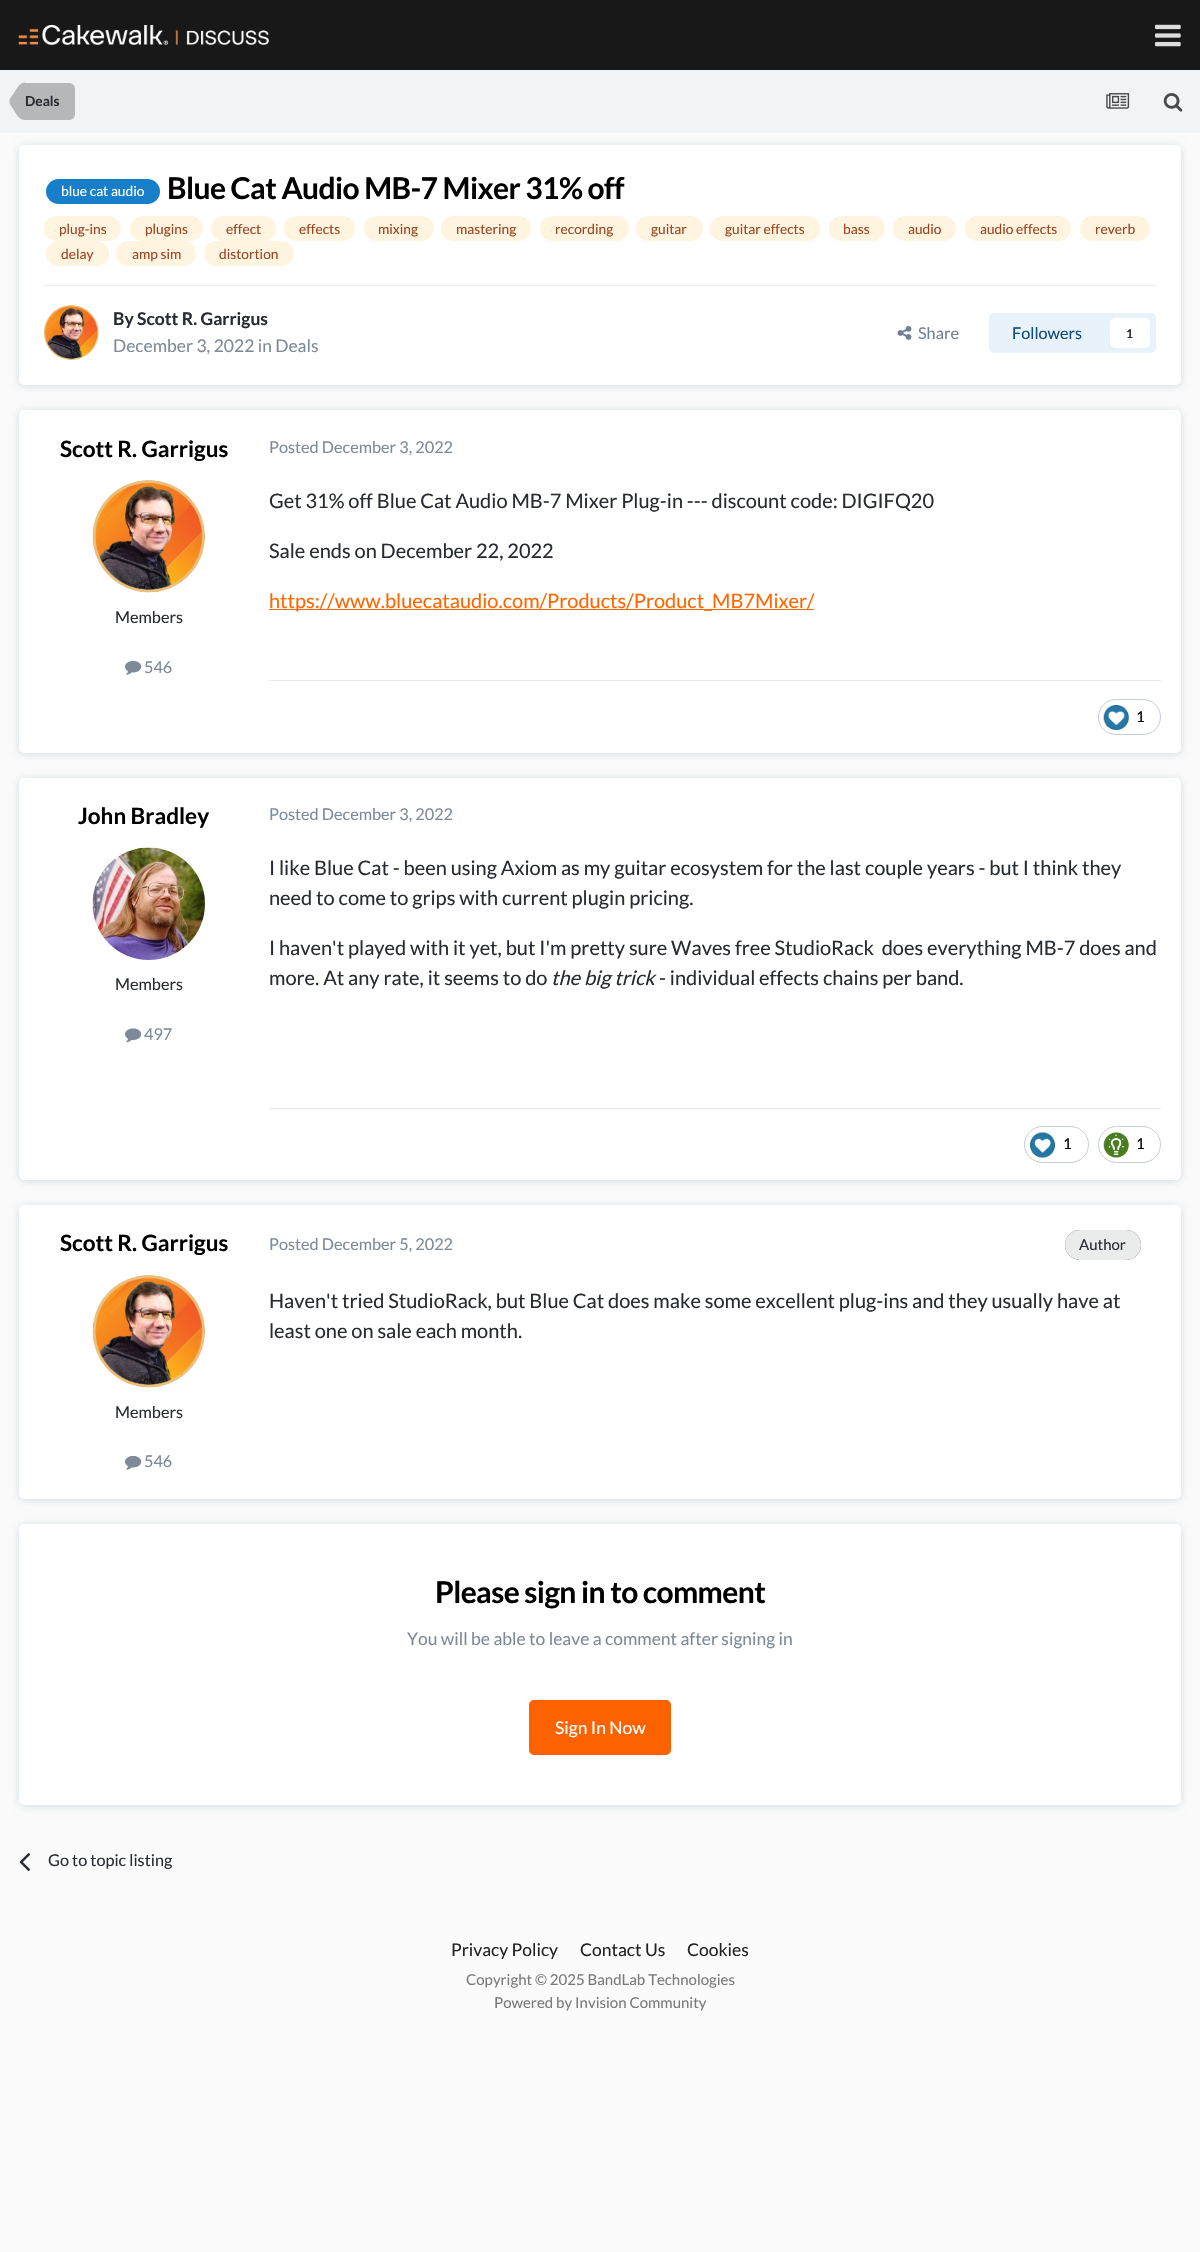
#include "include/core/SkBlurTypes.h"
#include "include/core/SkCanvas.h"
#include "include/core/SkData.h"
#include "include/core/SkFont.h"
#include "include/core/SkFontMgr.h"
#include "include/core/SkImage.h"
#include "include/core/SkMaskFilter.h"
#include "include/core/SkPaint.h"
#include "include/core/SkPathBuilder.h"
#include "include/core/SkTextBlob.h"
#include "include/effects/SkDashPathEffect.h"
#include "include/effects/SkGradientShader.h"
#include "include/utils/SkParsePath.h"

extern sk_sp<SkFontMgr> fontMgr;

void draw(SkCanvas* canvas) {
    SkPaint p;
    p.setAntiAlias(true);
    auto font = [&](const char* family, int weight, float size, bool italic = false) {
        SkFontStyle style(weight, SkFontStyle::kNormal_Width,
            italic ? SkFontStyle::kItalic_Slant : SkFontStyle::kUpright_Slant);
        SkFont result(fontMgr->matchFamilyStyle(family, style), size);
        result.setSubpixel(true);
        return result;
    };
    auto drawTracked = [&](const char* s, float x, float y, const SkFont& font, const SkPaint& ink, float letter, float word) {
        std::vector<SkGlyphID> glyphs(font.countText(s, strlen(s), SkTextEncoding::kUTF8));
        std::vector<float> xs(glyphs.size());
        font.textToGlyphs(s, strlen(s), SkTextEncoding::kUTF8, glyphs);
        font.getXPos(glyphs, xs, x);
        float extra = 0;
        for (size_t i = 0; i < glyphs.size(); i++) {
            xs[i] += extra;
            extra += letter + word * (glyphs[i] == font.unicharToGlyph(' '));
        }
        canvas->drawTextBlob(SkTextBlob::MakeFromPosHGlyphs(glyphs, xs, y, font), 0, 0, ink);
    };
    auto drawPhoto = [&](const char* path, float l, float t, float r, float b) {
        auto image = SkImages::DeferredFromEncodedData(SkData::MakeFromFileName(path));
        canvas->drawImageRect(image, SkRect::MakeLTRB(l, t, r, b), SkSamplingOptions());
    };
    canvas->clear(0xFFFBFBFB);
    p.setColor(0xFF181818);
    canvas->drawRect(SkRect::MakeLTRB(0, 0, 1200, 70), p);
    drawPhoto("media/1.png", 18, 25, 269, 45);
    drawPhoto("media/2.png", 1155, 24, 1181, 47);
    p.setColor(0xFFF1F4F6);
    canvas->drawRect(SkRect::MakeLTRB(0, 70, 1200, 133), p);
    p.setColor(0xFFB5B7B9);
    canvas->drawPath(SkPathBuilder().moveTo(25, 83).lineTo(69, 83).cubicTo(72.5f, 83, 75, 85.5f, 75, 89).lineTo(75, 114).cubicTo(75, 117.5f, 72.5f, 120, 69, 120).lineTo(25, 120).close().detach(), p);
    canvas->drawPath(SkPathBuilder().moveTo(25, 120).cubicTo(18.5f, 120, 15.5f, 112.5f, 12.5f, 108).cubicTo(11.5f, 106, 9, 104, 9.5f, 101.5f).lineTo(25, 101.5f).close().detach(), p);
    p.setColor(0x40000000);
    canvas->drawPath(SkPathBuilder().moveTo(25, 82.5f).lineTo(25, 101.5f).lineTo(9.5f, 101.5f).cubicTo(9.5f, 98.5f, 12.5f, 95, 14, 93).cubicTo(16.5f, 89, 19.5f, 82.5f, 25, 82.5f).close().detach(), p);
    auto font1 = font("Lato", 700, 13.75f);
    p.setColor(0xFF282C32);
    canvas->drawString("Deals", 25, 106, font1, p);
    drawPhoto("media/3.png", 1106, 93, 1130, 109);
    drawPhoto("media/4.png", 1163, 93, 1183, 112);
    p.setColor(0xFFD3DCE2);
    p.setMaskFilter(SkMaskFilter::MakeBlur(kNormal_SkBlurStyle, 4.5f));
    canvas->drawRoundRect(SkRect::MakeLTRB(19, 146, 1181, 386), 5, 5, p);
    p.setMaskFilter(nullptr);
    p.setColor(0xFFFFFFFF);
    canvas->drawRoundRect(SkRect::MakeLTRB(19, 145, 1181, 385), 5, 5, p);
    p.setColor(0xFF177EC9);
    canvas->drawRoundRect(SkRect::MakeLTRB(46, 179, 160, 204), 12.5f, 12.5f, p);
    auto font2 = font("Lato", 400, 13.75f);
    p.setColor(0xFFFFFFFF);
    canvas->drawString("blue cat audio", 61, 196, font2, p);
    auto font3 = font("Lato", 700, 30);
    p.setColor(0xFF000000);
    drawTracked("Blue Cat Audio MB-7 Mixer 31% off", 167, 199, font3, p, -0.6f, 0);
    p.setColor(0xFFFFF4DF);
    canvas->drawRoundRect(SkRect::MakeLTRB(44, 216, 121, 241), 12.5f, 12.5f, p);
    p.setColor(0xFF9C4221);
    canvas->drawString("plug-ins", 59, 234, font2, p);
    p.setColor(0xFFFFF4DF);
    canvas->drawRoundRect(SkRect::MakeLTRB(130, 216, 203, 241), 12.5f, 12.5f, p);
    p.setColor(0xFF9C4221);
    canvas->drawString("plugins", 145, 234, font2, p);
    p.setColor(0xFFFFF4DF);
    canvas->drawRoundRect(SkRect::MakeLTRB(211, 216, 276, 241), 12.5f, 12.5f, p);
    p.setColor(0xFF9C4221);
    canvas->drawString("effect", 226, 234, font2, p);
    p.setColor(0xFFFFF4DF);
    canvas->drawRoundRect(SkRect::MakeLTRB(284, 216, 355, 241), 12.5f, 12.5f, p);
    p.setColor(0xFF9C4221);
    canvas->drawString("effects", 299, 234, font2, p);
    p.setColor(0xFFFFF4DF);
    canvas->drawRoundRect(SkRect::MakeLTRB(364, 216, 434, 241), 12.5f, 12.5f, p);
    p.setColor(0xFF9C4221);
    canvas->drawString("mixing", 378, 234, font2, p);
    p.setColor(0xFFFFF4DF);
    canvas->drawRoundRect(SkRect::MakeLTRB(441, 216, 531, 241), 12.5f, 12.5f, p);
    canvas->save();
    canvas->clipRect(SkRect::MakeLTRB(456, 216, 516, 241));
    p.setColor(0xFF9C4221);
    canvas->drawString("mastering", 456, 234, font2, p);
    canvas->restore();
    p.setColor(0xFFFFF4DF);
    canvas->drawRoundRect(SkRect::MakeLTRB(540, 216, 629, 241), 12.5f, 12.5f, p);
    p.setColor(0xFF9C4221);
    canvas->drawString("recording", 555, 234, font2, p);
    p.setColor(0xFFFFF4DF);
    canvas->drawRoundRect(SkRect::MakeLTRB(636, 216, 703, 241), 12.5f, 12.5f, p);
    p.setColor(0xFF9C4221);
    canvas->drawString("guitar", 651, 234, font2, p);
    p.setColor(0xFFFFF4DF);
    canvas->drawRoundRect(SkRect::MakeLTRB(710, 216, 820, 241), 12.5f, 12.5f, p);
    p.setColor(0xFF9C4221);
    canvas->drawString("guitar effects", 725, 234, font2, p);
    p.setColor(0xFFFFF4DF);
    canvas->drawRoundRect(SkRect::MakeLTRB(829, 216, 885, 241), 12.5f, 12.5f, p);
    p.setColor(0xFF9C4221);
    canvas->drawString("bass", 843, 234, font2, p);
    p.setColor(0xFFFFF4DF);
    canvas->drawRoundRect(SkRect::MakeLTRB(893, 216, 956, 241), 12.5f, 12.5f, p);
    p.setColor(0xFF9C4221);
    canvas->drawString("audio", 908, 234, font2, p);
    p.setColor(0xFFFFF4DF);
    canvas->drawRoundRect(SkRect::MakeLTRB(965, 216, 1071, 241), 12.5f, 12.5f, p);
    p.setColor(0xFF9C4221);
    canvas->drawString("audio effects", 980, 234, font2, p);
    p.setColor(0xFFFFF4DF);
    canvas->drawRoundRect(SkRect::MakeLTRB(1080, 216, 1150, 241), 12.5f, 12.5f, p);
    p.setColor(0xFF9C4221);
    canvas->drawString("reverb", 1095, 234, font2, p);
    p.setColor(0xFFFFF4DF);
    canvas->drawRoundRect(SkRect::MakeLTRB(46, 241, 109, 266), 12.5f, 12.5f, p);
    p.setColor(0xFF9C4221);
    canvas->drawString("delay", 61, 259, font2, p);
    p.setColor(0xFFFFF4DF);
    canvas->drawRoundRect(SkRect::MakeLTRB(116, 241, 196, 266), 12.5f, 12.5f, p);
    p.setColor(0xFF9C4221);
    canvas->drawString("amp sim", 132, 259, font2, p);
    p.setColor(0xFFFFF4DF);
    canvas->drawRoundRect(SkRect::MakeLTRB(204, 241, 294, 266), 12.5f, 12.5f, p);
    p.setColor(0xFF9C4221);
    canvas->drawString("distortion", 219, 259, font2, p);
    p.setColor(0xFFEEEEEF);
    canvas->drawRect(SkRect::MakeLTRB(44, 285, 1156, 286), p);
    drawPhoto("media/5.png", 43, 305, 99, 360);
    auto font4 = font("Lato", 700, 17.5f);
    p.setColor(0xFF282C32);
    canvas->drawString("By Scott R. Garrigus", 113, 325, font4, p);
    auto font5 = font("Lato", 400, 17.5f);
    p.setColor(0xFF7E8999);
    canvas->drawString("December 3, 2022 in Deals", 113, 352, font5, p);
    drawPhoto("media/6.png", 897, 326, 912, 340);
    auto font6 = font("Lato", 400, 16.25f);
    p.setColor(0xFF718096);
    canvas->drawString("Share", 918, 339, font6, p);
    p.setColor(0xFFE8F2FA);
    canvas->drawRoundRect(SkRect::MakeLTRB(989, 313, 1156, 353), 5, 5, p);
    p.setColor(0xFF0E4C79);
    canvas->drawString("Followers", 1012, 339, font6, p);
    p.setColor(0xFFFFFFFF);
    canvas->drawRoundRect(SkRect::MakeLTRB(1110, 318, 1150, 348), 5, 5, p);
    auto font7 = font("Lato", 700, 12);
    p.setColor(0xFF282C32);
    canvas->drawString("1", 1126, 338, font7, p);
    p.setColor(0xFFD3DCE2);
    p.setMaskFilter(SkMaskFilter::MakeBlur(kNormal_SkBlurStyle, 4.5f));
    canvas->drawRoundRect(SkRect::MakeLTRB(19, 411, 1181, 754), 5, 5, p);
    p.setMaskFilter(nullptr);
    p.setColor(0xFFFFFFFF);
    canvas->drawRoundRect(SkRect::MakeLTRB(19, 410, 1181, 753), 5, 5, p);
    auto font8 = font("Lato", 700, 22.5f);
    p.setColor(0xFF000000);
    canvas->drawString("Scott R. Garrigus", 60, 457, font8, p);
    drawPhoto("media/7.png", 92, 480, 205, 593);
    p.setColor(0xFF282C32);
    canvas->drawString("Members", 115, 623, font6, p);
    drawPhoto("media/8.png", 125, 660, 142, 675);
    p.setColor(0xFF7E8999);
    canvas->drawString("546", 144, 673, font6, p);
    canvas->drawString("Posted December 3, 2022", 269, 453, font6, p);
    auto font9 = font("Lato", 400, 20);
    p.setColor(0xFF282C32);
    canvas->drawString("Get 31% off Blue Cat Audio MB-7 Mixer Plug-in --- discount code: DIGIFQ20", 269, 508, font9, p);
    canvas->drawString("Sale ends on December 22, 2022", 269, 558, font9, p);
    p.setColor(0xFFFF6600);
    canvas->drawRect(SkRect::MakeLTRB(269, 609, 814, 610), p);
    canvas->drawString("https://www.bluecataudio.com/Products/Product_MB7Mixer/", 269, 608, font9, p);
    p.setColor(0xFFEAEAEB);
    canvas->drawRect(SkRect::MakeLTRB(269, 680, 1161, 681), p);
    p.setStyle(SkPaint::kStroke_Style);
    p.setStrokeWidth(1);
    p.setColor(0xFFC6CCD5);
    canvas->drawRoundRect(SkRect::MakeLTRB(1098.5f, 699.5f, 1160.5f, 734.5f), 17.5f, 17.5f, p);
    drawPhoto("media/9.png", 1103, 705, 1129, 730);
    auto font10 = font("Lato", 400, 15);
    p.setStyle(SkPaint::kFill_Style);
    p.setColor(0xFF000000);
    canvas->drawString("1", 1136, 722, font10, p);
    p.setColor(0xFFD3DCE2);
    p.setMaskFilter(SkMaskFilter::MakeBlur(kNormal_SkBlurStyle, 4.5f));
    canvas->drawRoundRect(SkRect::MakeLTRB(19, 779, 1181, 1181), 5, 5, p);
    p.setMaskFilter(nullptr);
    p.setColor(0xFFFFFFFF);
    canvas->drawRoundRect(SkRect::MakeLTRB(19, 778, 1181, 1180), 5, 5, p);
    p.setColor(0xFF000000);
    canvas->drawString("John Bradley", 78, 824, font8, p);
    drawPhoto("media/10.png", 92, 847, 205, 960);
    p.setColor(0xFF282C32);
    canvas->drawString("Members", 115, 990, font6, p);
    drawPhoto("media/11.png", 125, 1028, 142, 1043);
    p.setColor(0xFF7E8999);
    canvas->drawString("497", 144, 1040, font6, p);
    canvas->drawString("Posted December 3, 2022", 269, 820, font6, p);
    p.setColor(0xFF282C32);
    {
        const struct { const char* s; float x, y; } items[] = {
            {"I like Blue Cat - been using Axiom as my guitar ecosystem for the last couple years - but I think they", 269, 875},
            {"need to come to grips with current plugin pricing.", 269, 905},
            {"I haven't played with it yet, but I'm pretty sure Waves free StudioRack  does everything MB-7 does and", 269, 955},
            {"more. At any rate, it seems to do", 269, 985},
        };
        for (auto [s, x, y] : items) {
            canvas->drawString(s, x, y, font9, p);
        }
    }
    auto font11 = font("Lato", 400, 20, true);
    canvas->drawString("the big trick", 551, 985, font11, p);
    canvas->drawString("- individual effects chains per band.", 659, 985, font9, p);
    p.setColor(0xFFEAEAEB);
    canvas->drawRect(SkRect::MakeLTRB(269, 1108, 1161, 1109), p);
    p.setStyle(SkPaint::kStroke_Style);
    p.setColor(0xFFC6CCD5);
    canvas->drawRoundRect(SkRect::MakeLTRB(1024.5f, 1126.5f, 1088.5f, 1162.5f), 18, 18, p);
    drawPhoto("media/12.png", 1030, 1132, 1055, 1158);
    p.setStyle(SkPaint::kFill_Style);
    p.setColor(0xFF000000);
    canvas->drawString("1", 1063, 1149, font10, p);
    p.setStyle(SkPaint::kStroke_Style);
    p.setColor(0xFFC6CCD5);
    canvas->drawRoundRect(SkRect::MakeLTRB(1098.5f, 1126.5f, 1160.5f, 1162.5f), 18, 18, p);
    drawPhoto("media/13.png", 1103, 1132, 1129, 1158);
    p.setStyle(SkPaint::kFill_Style);
    p.setColor(0xFF000000);
    canvas->drawString("1", 1136, 1149, font10, p);
    p.setColor(0xFFD3DCE2);
    p.setMaskFilter(SkMaskFilter::MakeBlur(kNormal_SkBlurStyle, 4.5f));
    canvas->drawRoundRect(SkRect::MakeLTRB(19, 1206, 1181, 1500), 5, 5, p);
    p.setMaskFilter(nullptr);
    p.setColor(0xFFFFFFFF);
    canvas->drawRoundRect(SkRect::MakeLTRB(19, 1205, 1181, 1499), 5, 5, p);
    p.setColor(0xFF000000);
    canvas->drawString("Scott R. Garrigus", 60, 1251, font8, p);
    drawPhoto("media/14.png", 92, 1275, 205, 1388);
    p.setColor(0xFF282C32);
    canvas->drawString("Members", 115, 1418, font6, p);
    drawPhoto("media/8.png", 125, 1455, 142, 1470);
    p.setColor(0xFF7E8999);
    canvas->drawString("546", 144, 1467, font6, p);
    canvas->drawString("Posted December 5, 2022", 269, 1250, font6, p);
    p.setColor(0xFF282C31);
    canvas->drawRoundRect(SkRect::MakeLTRB(1065, 1230, 1141, 1260), 15, 15, p);
    p.setColor(0xE6FFFFFF);
    canvas->drawRoundRect(SkRect::MakeLTRB(1065, 1230, 1141, 1260), 15, 15, p);
    p.setColor(0xFF282C32);
    canvas->drawString("Author", 1079, 1250, font10, p);
    canvas->drawString("Haven't tried StudioRack, but Blue Cat does make some excellent plug-ins and they usually have at", 269, 1308, font9, p);
    canvas->drawString("least one on sale each month.", 269, 1338, font9, p);
    p.setColor(0xFFD3DCE2);
    p.setMaskFilter(SkMaskFilter::MakeBlur(kNormal_SkBlurStyle, 4.5f));
    canvas->drawRoundRect(SkRect::MakeLTRB(19, 1525, 1181, 1806), 5, 5, p);
    p.setMaskFilter(nullptr);
    p.setColor(0xFFFFFFFF);
    canvas->drawRoundRect(SkRect::MakeLTRB(19, 1524, 1181, 1805), 5, 5, p);
    p.setColor(0xFF000000);
    drawTracked("Please sign in to comment", 435, 1603, font3, p, -0.6f, 0);
    p.setColor(0xFF7E8999);
    canvas->drawString("You will be able to leave a comment after signing in", 407, 1645, font5, p);
    p.setColor(0xFFFC6300);
    canvas->drawRoundRect(SkRect::MakeLTRB(529, 1700, 671, 1755), 5, 5, p);
    p.setColor(0xFFFFFFFF);
    canvas->drawString("Sign In Now", 555, 1734, font5, p);
    drawPhoto("media/15.png", 19, 1853, 31, 1872);
    p.setColor(0xFF282C32);
    canvas->drawString("Go to topic listing", 48, 1866, font6, p);
    p.setColor(0xFF222222);
    {
        const struct { const char* s; float x, y; } items[] = {
            {"Privacy Policy", 451, 1956},
            {"Contact Us", 580, 1956},
            {"Cookies", 687, 1956},
        };
        for (auto [s, x, y] : items) {
            canvas->drawString(s, x, y, font5, p);
        }
    }
    p.setColor(0xFF797979);
    canvas->drawString("Copyright © 2025 BandLab Technologies", 466, 1985, font10, p);
    canvas->drawString("Powered by Invision Community", 494, 2008, font10, p);
}
